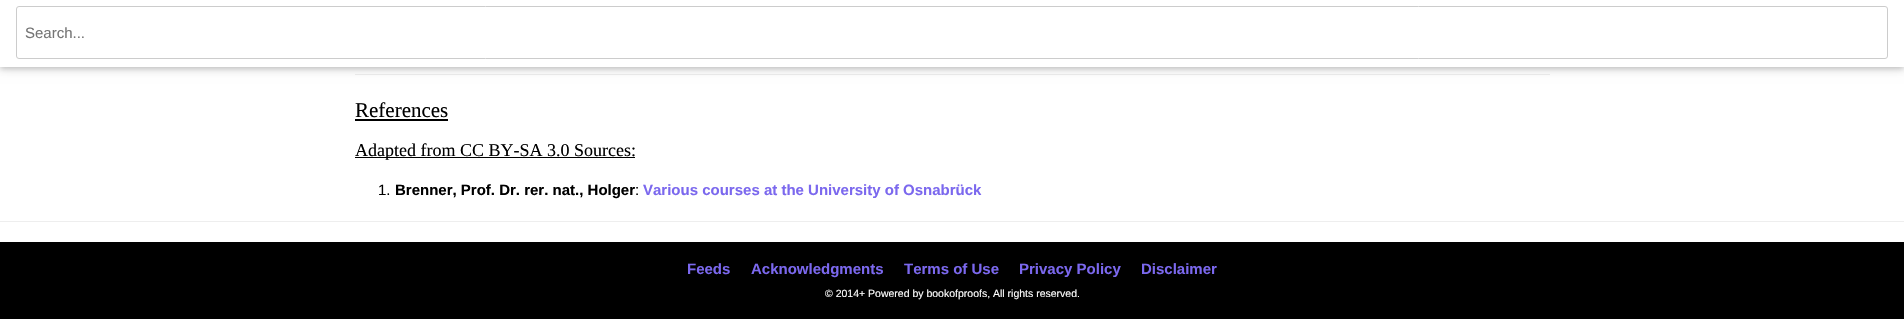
#include "include/core/SkBlurTypes.h"
#include "include/core/SkCanvas.h"
#include "include/core/SkData.h"
#include "include/core/SkFont.h"
#include "include/core/SkFontMgr.h"
#include "include/core/SkImage.h"
#include "include/core/SkMaskFilter.h"
#include "include/core/SkPaint.h"
#include "include/core/SkPathBuilder.h"
#include "include/core/SkTextBlob.h"
#include "include/effects/SkDashPathEffect.h"
#include "include/effects/SkGradientShader.h"
#include "include/utils/SkParsePath.h"

extern sk_sp<SkFontMgr> fontMgr;

void draw(SkCanvas* canvas) {
    SkPaint p;
    p.setAntiAlias(true);
    auto font = [&](const char* family, int weight, float size, bool italic = false) {
        SkFontStyle style(weight, SkFontStyle::kNormal_Width,
            italic ? SkFontStyle::kItalic_Slant : SkFontStyle::kUpright_Slant);
        SkFont result(fontMgr->matchFamilyStyle(family, style), size);
        result.setSubpixel(true);
        return result;
    };
    canvas->clear(0xFFFFFFFF);
    p.setColor(0xFFEEEEEE);
    canvas->drawRect(SkRect::MakeLTRB(355, 74, 1550, 75), p);
    p.setColor(0x1F000000);
    p.setMaskFilter(SkMaskFilter::MakeBlur(kNormal_SkBlurStyle, 5));
    canvas->drawRect(SkRect::MakeLTRB(0, -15, 1904, 69), p);
    p.setMaskFilter(nullptr);
    p.setColor(0x29000000);
    p.setMaskFilter(SkMaskFilter::MakeBlur(kNormal_SkBlurStyle, 2.5f));
    canvas->drawRect(SkRect::MakeLTRB(0, -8, 1904, 69), p);
    p.setMaskFilter(nullptr);
    p.setColor(0xFFFFFFFF);
    canvas->drawRect(SkRect::MakeLTRB(0, 0, 1904, 67), p);
    p.setStyle(SkPaint::kStroke_Style);
    p.setStrokeWidth(1);
    p.setColor(0xFFCCCCCC);
    canvas->drawRoundRect(SkRect::MakeLTRB(16.5f, 6.5f, 1887.5f, 58.5f), 2.5f, 2.5f, p);
    auto font1 = font("Liberation Sans", 400, 15);
    p.setStyle(SkPaint::kFill_Style);
    p.setColor(0xFF757575);
    canvas->drawString("Search...", 25, 38, font1, p);
    auto font2 = font("Liberation Serif", 400, 21);
    p.setColor(0xFF000000);
    canvas->drawString("References", 355, 117, font2, p);
    canvas->drawRect(SkRect::MakeLTRB(355, 119, 448, 121), p);
    canvas->drawRect(SkRect::MakeLTRB(355, 157, 635, 158), p);
    auto font3 = font("Liberation Serif", 400, 18);
    canvas->drawString("Adapted from CC BY-SA 3.0 Sources:", 355, 156, font3, p);
    canvas->drawString("1.", 378, 195, font1, p);
    auto font4 = font("Liberation Sans", 700, 15);
    canvas->drawString("Brenner, Prof. Dr. rer. nat., Holger", 395, 195, font4, p);
    canvas->drawString(":", 635, 195, font1, p);
    p.setColor(0xFF7B68EE);
    canvas->drawString("Various courses at the University of Osnabrück", 643, 195, font4, p);
    p.setColor(0xFFEEEEEE);
    canvas->drawRect(SkRect::MakeLTRB(0, 221, 1904, 222), p);
    p.setColor(0xFF000000);
    canvas->drawRect(SkRect::MakeLTRB(0, 242, 1904, 319), p);
    p.setColor(0xFF7B68EE);
    {
        const struct { const char* s; float x, y; } items[] = {
            {"Feeds", 687, 274},
            {"Acknowledgments", 751, 274},
            {"Terms of Use", 904, 274},
            {"Privacy Policy", 1019, 274},
            {"Disclaimer", 1141, 274},
        };
        for (auto [s, x, y] : items) {
            canvas->drawString(s, x, y, font4, p);
        }
    }
    auto font5 = font("Liberation Sans", 400, 10.5f);
    p.setColor(0xFFFFFFFF);
    canvas->drawString("© 2014+ Powered by bookofproofs, All rights reserved.", 825, 297, font5, p);
}
